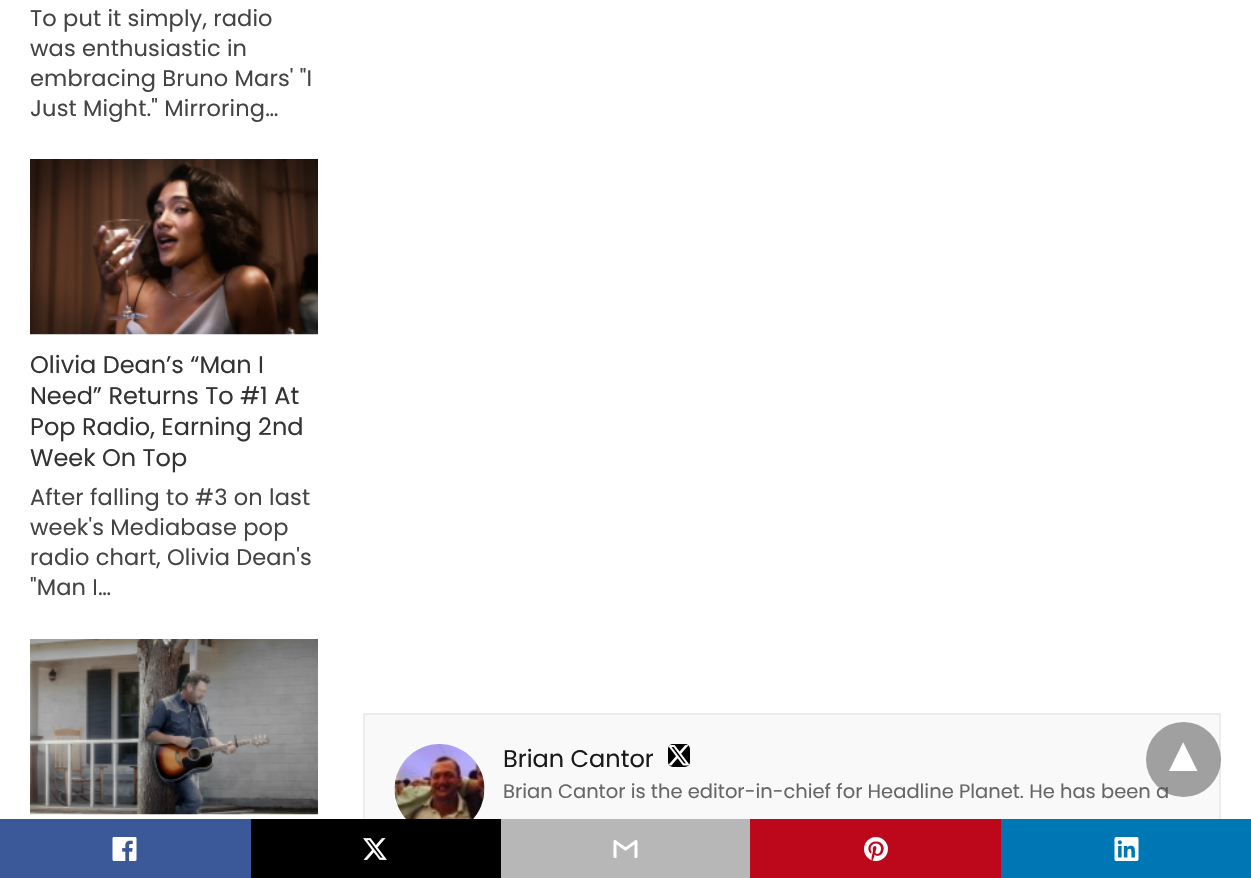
#include "include/core/SkBlurTypes.h"
#include "include/core/SkCanvas.h"
#include "include/core/SkData.h"
#include "include/core/SkFont.h"
#include "include/core/SkFontMgr.h"
#include "include/core/SkImage.h"
#include "include/core/SkMaskFilter.h"
#include "include/core/SkPaint.h"
#include "include/core/SkPathBuilder.h"
#include "include/core/SkTextBlob.h"
#include "include/effects/SkDashPathEffect.h"
#include "include/effects/SkGradientShader.h"
#include "include/utils/SkParsePath.h"

extern sk_sp<SkFontMgr> fontMgr;

void draw(SkCanvas* canvas) {
    SkPaint p;
    p.setAntiAlias(true);
    auto font = [&](const char* family, int weight, float size, bool italic = false) {
        SkFontStyle style(weight, SkFontStyle::kNormal_Width,
            italic ? SkFontStyle::kItalic_Slant : SkFontStyle::kUpright_Slant);
        SkFont result(fontMgr->matchFamilyStyle(family, style), size);
        result.setSubpixel(true);
        return result;
    };
    auto drawTracked = [&](const char* s, float x, float y, const SkFont& font, const SkPaint& ink, float letter, float word) {
        std::vector<SkGlyphID> glyphs(font.countText(s, strlen(s), SkTextEncoding::kUTF8));
        std::vector<float> xs(glyphs.size());
        font.textToGlyphs(s, strlen(s), SkTextEncoding::kUTF8, glyphs);
        font.getXPos(glyphs, xs, x);
        float extra = 0;
        for (size_t i = 0; i < glyphs.size(); i++) {
            xs[i] += extra;
            extra += letter + word * (glyphs[i] == font.unicharToGlyph(' '));
        }
        canvas->drawTextBlob(SkTextBlob::MakeFromPosHGlyphs(glyphs, xs, y, font), 0, 0, ink);
    };
    auto drawPhoto = [&](const char* path, float l, float t, float r, float b) {
        auto image = SkImages::DeferredFromEncodedData(SkData::MakeFromFileName(path));
        canvas->drawImageRect(image, SkRect::MakeLTRB(l, t, r, b), SkSamplingOptions());
    };
    canvas->clear(0xFFFFFFFF);
    auto font1 = font("Poppins", 400, 22.5f);
    p.setColor(0xFF444444);
    {
        const struct { const char* s; float x, y; } items[] = {
            {"To put it simply, radio", 30, 26},
            {"was enthusiastic in", 30, 56},
            {"embracing Bruno Mars' \"I", 30, 86},
            {"Just Might.\" Mirroring…", 30, 116},
        };
        for (auto [s, x, y] : items) {
            drawTracked(s, x, y, font1, p, 0.15f, 0);
        }
    }
    drawPhoto("media/1.png", 30, 159, 318, 335);
    auto font2 = font("Poppins", 400, 24);
    p.setColor(0xFF333333);
    {
        const struct { const char* s; float x, y; } items[] = {
            {"Olivia Dean’s “Man I", 30, 373},
            {"Need” Returns To #1 At", 30, 404},
            {"Pop Radio, Earning 2nd", 30, 435},
            {"Week On Top", 30, 466},
        };
        for (auto [s, x, y] : items) {
            canvas->drawString(s, x, y, font2, p);
        }
    }
    p.setColor(0xFF444444);
    {
        const struct { const char* s; float x, y; } items[] = {
            {"After falling to #3 on last", 30, 505},
            {"week's Mediabase pop", 30, 535},
            {"radio chart, Olivia Dean's", 30, 565},
            {"\"Man I…", 30, 595},
        };
        for (auto [s, x, y] : items) {
            drawTracked(s, x, y, font1, p, 0.15f, 0);
        }
    }
    drawPhoto("media/2.png", 30, 639, 318, 815);
    p.setColor(0xFFF9F9F9);
    canvas->drawRect(SkRect::MakeLTRB(365, 715, 1219, 819), p);
    p.setStyle(SkPaint::kStroke_Style);
    p.setStrokeWidth(2);
    p.setColor(0xFFECECEC);
    canvas->drawRect(SkRect::MakeLTRB(364, 714, 1220, 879), p);
    drawPhoto("media/3.png", 394, 744, 485, 819);
    p.setStyle(SkPaint::kFill_Style);
    p.setColor(0xFF191919);
    canvas->drawString("Brian Cantor", 503, 767, font2, p);
    p.setColor(0xFF000000);
    canvas->drawRoundRect(SkRect::MakeLTRB(668, 744, 690, 767), 5, 5, p);
    drawPhoto("media/4.png", 668, 745, 690, 766);
    auto font3 = font("Poppins", 400, 19.5f);
    p.setColor(0xFF666666);
    canvas->drawString("Brian Cantor is the editor-in-chief for Headline Planet. He has been a", 503, 798, font3, p);
    p.setColor(0x80474747);
    canvas->drawCircle(1183.5f, 759.5f, 37.5f, p);
    auto font4 = font("DejaVu Sans", 700, 52);
    p.setColor(0xFFFFFFFF);
    canvas->save();
    canvas->rotate(180, 1197, 743);
    canvas->drawString("▾", 1197, 743, font4, p);
    canvas->restore();
    p.setColor(0xFF3B5998);
    canvas->drawRect(SkRect::MakeLTRB(0, 819, 251, 878), p);
    drawPhoto("media/5.png", 112, 837, 137, 861);
    p.setColor(0xFF000000);
    canvas->drawRect(SkRect::MakeLTRB(251, 819, 501, 878), p);
    drawPhoto("media/6.png", 363, 838, 387, 860);
    p.setColor(0xFFB7B7B7);
    canvas->drawRect(SkRect::MakeLTRB(501, 819, 750, 878), p);
    drawPhoto("media/7.png", 613, 840, 638, 858);
    p.setColor(0xFFBD081C);
    canvas->drawRect(SkRect::MakeLTRB(750, 819, 1001, 878), p);
    drawPhoto("media/8.png", 864, 837, 888, 861);
    p.setColor(0xFF0077B5);
    canvas->drawRect(SkRect::MakeLTRB(1001, 819, 1251, 878), p);
    drawPhoto("media/9.png", 1114, 837, 1139, 861);
}
